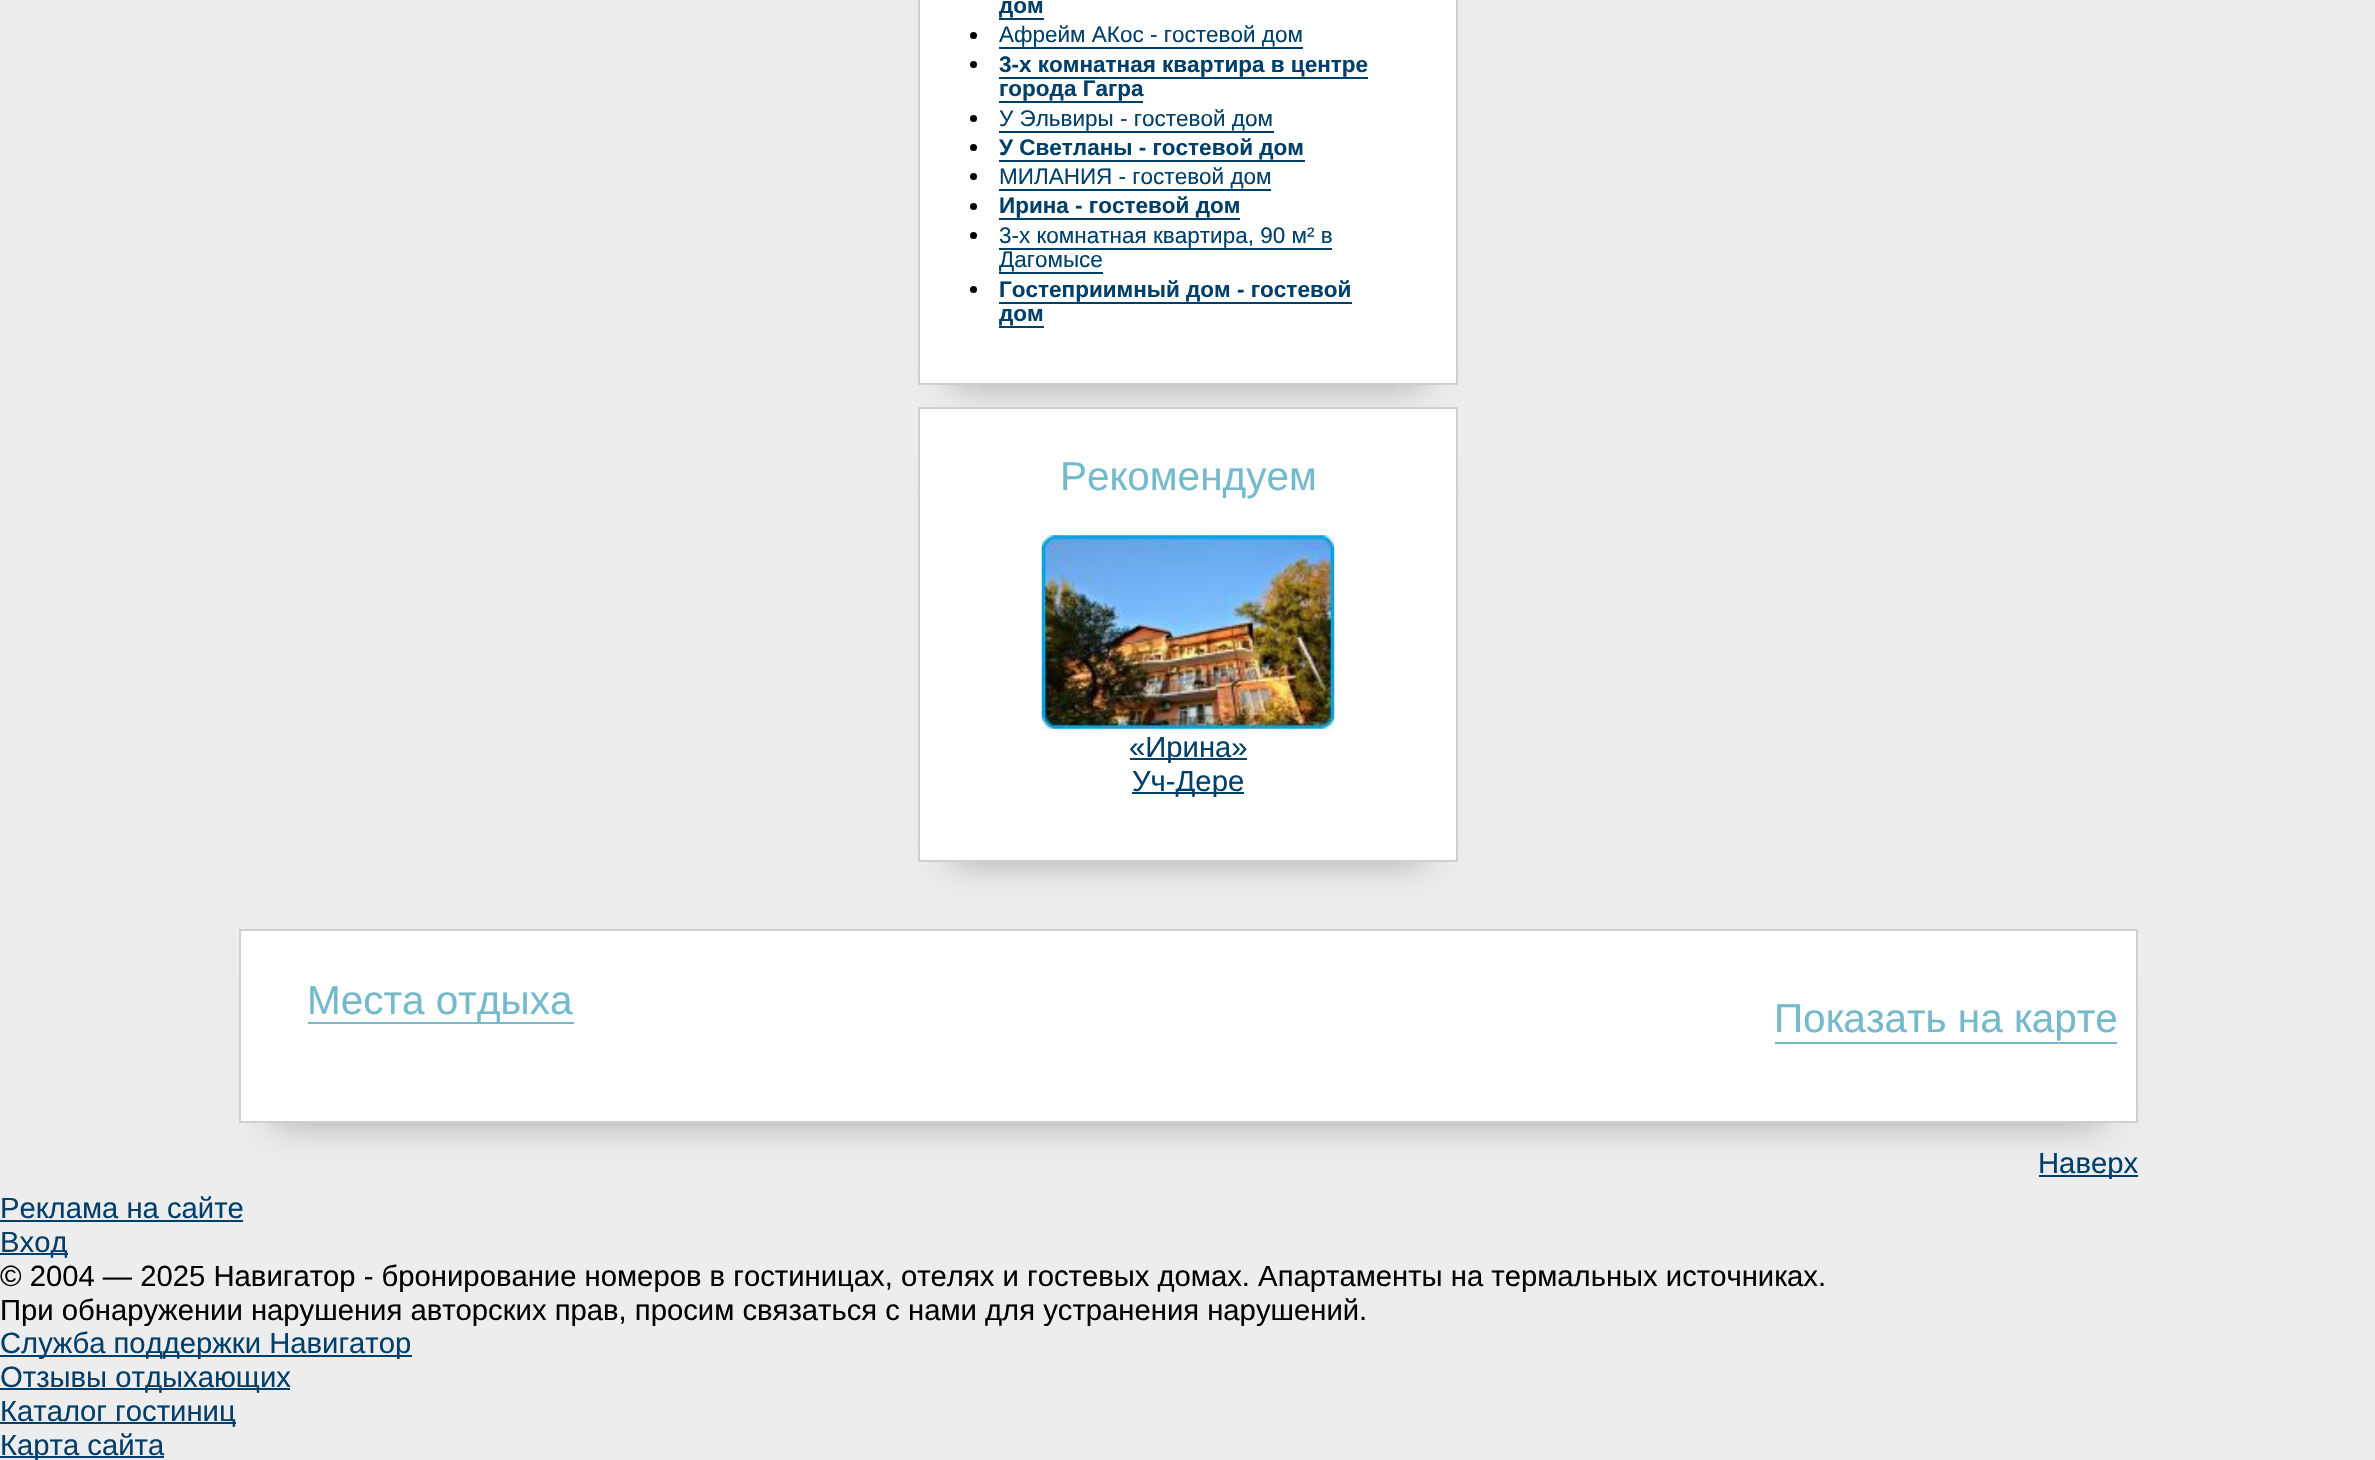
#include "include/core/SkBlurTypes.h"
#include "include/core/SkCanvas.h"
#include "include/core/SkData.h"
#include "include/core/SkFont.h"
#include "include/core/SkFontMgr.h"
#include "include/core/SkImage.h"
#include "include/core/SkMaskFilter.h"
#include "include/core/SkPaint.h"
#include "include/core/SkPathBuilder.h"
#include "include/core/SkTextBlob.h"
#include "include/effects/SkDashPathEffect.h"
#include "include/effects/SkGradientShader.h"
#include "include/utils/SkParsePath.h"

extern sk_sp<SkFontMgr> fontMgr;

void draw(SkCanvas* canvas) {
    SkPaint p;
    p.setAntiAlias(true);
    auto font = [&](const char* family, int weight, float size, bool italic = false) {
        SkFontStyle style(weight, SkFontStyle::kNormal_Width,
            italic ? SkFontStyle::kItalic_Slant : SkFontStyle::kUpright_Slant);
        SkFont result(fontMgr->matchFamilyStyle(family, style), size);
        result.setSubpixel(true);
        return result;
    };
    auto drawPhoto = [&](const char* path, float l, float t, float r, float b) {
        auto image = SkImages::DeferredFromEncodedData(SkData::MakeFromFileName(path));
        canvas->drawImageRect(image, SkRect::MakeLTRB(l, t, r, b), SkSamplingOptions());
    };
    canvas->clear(0xFFEDEDED);
    p.setColor(0xFFA7A8AA);
    p.setMaskFilter(SkMaskFilter::MakeBlur(kNormal_SkBlurStyle, 17));
    canvas->drawRect(SkRect::MakeLTRB(952, -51, 1424, 385), p);
    p.setMaskFilter(nullptr);
    p.setColor(0xFFFFFFFF);
    canvas->drawRect(SkRect::MakeLTRB(919, -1, 1457, 384), p);
    p.setStyle(SkPaint::kStroke_Style);
    p.setStrokeWidth(2);
    p.setColor(0xFFCDCFD1);
    canvas->drawRect(SkRect::MakeLTRB(919, -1, 1457, 384), p);
    auto font1 = font("Liberation Sans", 700, 22.5f);
    p.setStyle(SkPaint::kFill_Style);
    p.setColor(0xFF003F6A);
    canvas->drawString("дом", 999, 13, font1, p);
    canvas->drawRect(SkRect::MakeLTRB(999, 18, 1044, 20), p);
    p.setColor(0xFF000000);
    canvas->drawCircle(973.5f, 35.5f, 3.5f, p);
    auto font2 = font("Liberation Sans", 400, 22.5f);
    p.setColor(0xFF003F6A);
    canvas->drawString("Афрейм АКос - гостевой дом", 999, 42, font2, p);
    canvas->drawRect(SkRect::MakeLTRB(999, 47, 1303, 49), p);
    p.setColor(0xFF000000);
    canvas->drawCircle(973.5f, 64.5f, 3.5f, p);
    p.setColor(0xFF003F6A);
    canvas->drawString("3-х комнатная квартира в центре", 999, 72, font1, p);
    canvas->drawRect(SkRect::MakeLTRB(999, 77, 1368, 79), p);
    canvas->drawString("города Гагра", 999, 96, font1, p);
    canvas->drawRect(SkRect::MakeLTRB(999, 101, 1143, 103), p);
    p.setColor(0xFF000000);
    canvas->drawCircle(973.5f, 118.5f, 3.5f, p);
    p.setColor(0xFF003F6A);
    canvas->drawString("У Эльвиры - гостевой дом", 999, 126, font2, p);
    canvas->drawRect(SkRect::MakeLTRB(999, 131, 1274, 133), p);
    p.setColor(0xFF000000);
    canvas->drawCircle(973.5f, 147.5f, 3.5f, p);
    p.setColor(0xFF003F6A);
    canvas->drawString("У Светланы - гостевой дом", 999, 155, font1, p);
    canvas->drawRect(SkRect::MakeLTRB(999, 160, 1305, 162), p);
    p.setColor(0xFF000000);
    canvas->drawCircle(973.5f, 176.5f, 3.5f, p);
    p.setColor(0xFF003F6A);
    canvas->drawString("МИЛАНИЯ - гостевой дом", 999, 184, font2, p);
    canvas->drawRect(SkRect::MakeLTRB(999, 189, 1271, 191), p);
    p.setColor(0xFF000000);
    canvas->drawCircle(973.5f, 206.5f, 3.5f, p);
    p.setColor(0xFF003F6A);
    canvas->drawString("Ирина - гостевой дом", 999, 213, font1, p);
    canvas->drawRect(SkRect::MakeLTRB(999, 218, 1240, 220), p);
    p.setColor(0xFF000000);
    canvas->drawCircle(973.5f, 235.5f, 3.5f, p);
    p.setColor(0xFF003F6A);
    canvas->drawString("3-х комнатная квартира, 90 м² в", 999, 243, font2, p);
    canvas->drawRect(SkRect::MakeLTRB(999, 248, 1332, 250), p);
    canvas->drawString("Дагомысе", 999, 267, font2, p);
    canvas->drawRect(SkRect::MakeLTRB(999, 272, 1103, 274), p);
    p.setColor(0xFF000000);
    canvas->drawCircle(973.5f, 289.5f, 3.5f, p);
    p.setColor(0xFF003F6A);
    canvas->drawString("Гостеприимный дом - гостевой", 999, 297, font1, p);
    canvas->drawRect(SkRect::MakeLTRB(999, 302, 1352, 304), p);
    canvas->drawString("дом", 999, 321, font1, p);
    canvas->drawRect(SkRect::MakeLTRB(999, 326, 1044, 328), p);
    p.setColor(0xFFA7A8AA);
    p.setMaskFilter(SkMaskFilter::MakeBlur(kNormal_SkBlurStyle, 17));
    canvas->drawRect(SkRect::MakeLTRB(952, 475, 1424, 862), p);
    p.setMaskFilter(nullptr);
    p.setColor(0xFFFFFFFF);
    canvas->drawRect(SkRect::MakeLTRB(919, 408, 1457, 861), p);
    p.setStyle(SkPaint::kStroke_Style);
    p.setColor(0xFFCDCFD1);
    canvas->drawRect(SkRect::MakeLTRB(919, 408, 1457, 861), p);
    auto font3 = font("Liberation Sans", 400, 40.5f);
    p.setStyle(SkPaint::kFill_Style);
    p.setColor(0xFF74BACC);
    canvas->drawString("Рекомендуем", 1060, 490, font3, p);
    drawPhoto("media/1.png", 1041, 535, 1335, 729);
    p.setColor(0xFF003F6A);
    canvas->drawRect(SkRect::MakeLTRB(1130, 758, 1247, 760), p);
    auto font4 = font("Liberation Sans", 400, 29.25f);
    canvas->drawString("«Ирина»", 1129, 757, font4, p);
    canvas->drawRect(SkRect::MakeLTRB(1132, 792, 1244, 794), p);
    canvas->drawString("Уч-Дере", 1132, 791, font4, p);
    p.setColor(0xFFA7A8AA);
    p.setMaskFilter(SkMaskFilter::MakeBlur(kNormal_SkBlurStyle, 17));
    canvas->drawRect(SkRect::MakeLTRB(272, 997, 2104, 1123), p);
    p.setMaskFilter(nullptr);
    p.setColor(0xFFFFFFFF);
    canvas->drawRect(SkRect::MakeLTRB(240, 930, 2137, 1122), p);
    p.setStyle(SkPaint::kStroke_Style);
    p.setColor(0xFFCDCFD1);
    canvas->drawRect(SkRect::MakeLTRB(240, 930, 2137, 1122), p);
    p.setStyle(SkPaint::kFill_Style);
    p.setColor(0xFF74BACC);
    canvas->drawRect(SkRect::MakeLTRB(308, 1022, 574, 1024), p);
    canvas->drawString("Места отдыха", 307, 1014, font3, p);
    canvas->drawRect(SkRect::MakeLTRB(1775, 1042, 2117, 1044), p);
    canvas->drawString("Показать на карте", 1774, 1032, font3, p);
    p.setColor(0xFF003F6A);
    canvas->drawRect(SkRect::MakeLTRB(2039, 1175, 2138, 1177), p);
    canvas->drawString("Наверх", 2038, 1173, font4, p);
    canvas->drawString("Реклама на сайте", 0, 1218, font4, p);
    canvas->drawRect(SkRect::MakeLTRB(0, 1220, 243, 1222), p);
    canvas->drawRect(SkRect::MakeLTRB(0, 1253, 68, 1255), p);
    canvas->drawString("Вход", 0, 1252, font4, p);
    p.setColor(0xFF000000);
    canvas->drawString("© 2004 — 2025 Навигатор - бронирование номеров в гостиницах, отелях и гостевых домах. Апартаменты на термальных источниках.", 0, 1286, font4, p);
    canvas->drawString("При обнаружении нарушения авторских прав, просим связаться с нами для устранения нарушений.", 0, 1320, font4, p);
    p.setColor(0xFF003F6A);
    canvas->drawRect(SkRect::MakeLTRB(0, 1355, 412, 1357), p);
    canvas->drawString("Служба поддержки Навигатор", 0, 1353, font4, p);
    canvas->drawRect(SkRect::MakeLTRB(0, 1388, 290, 1390), p);
    canvas->drawString("Отзывы отдыхающих", 0, 1387, font4, p);
    canvas->drawRect(SkRect::MakeLTRB(0, 1422, 236, 1424), p);
    canvas->drawString("Каталог гостиниц", 0, 1421, font4, p);
    canvas->drawRect(SkRect::MakeLTRB(0, 1456, 164, 1458), p);
    canvas->drawString("Карта сайта", 0, 1455, font4, p);
}
